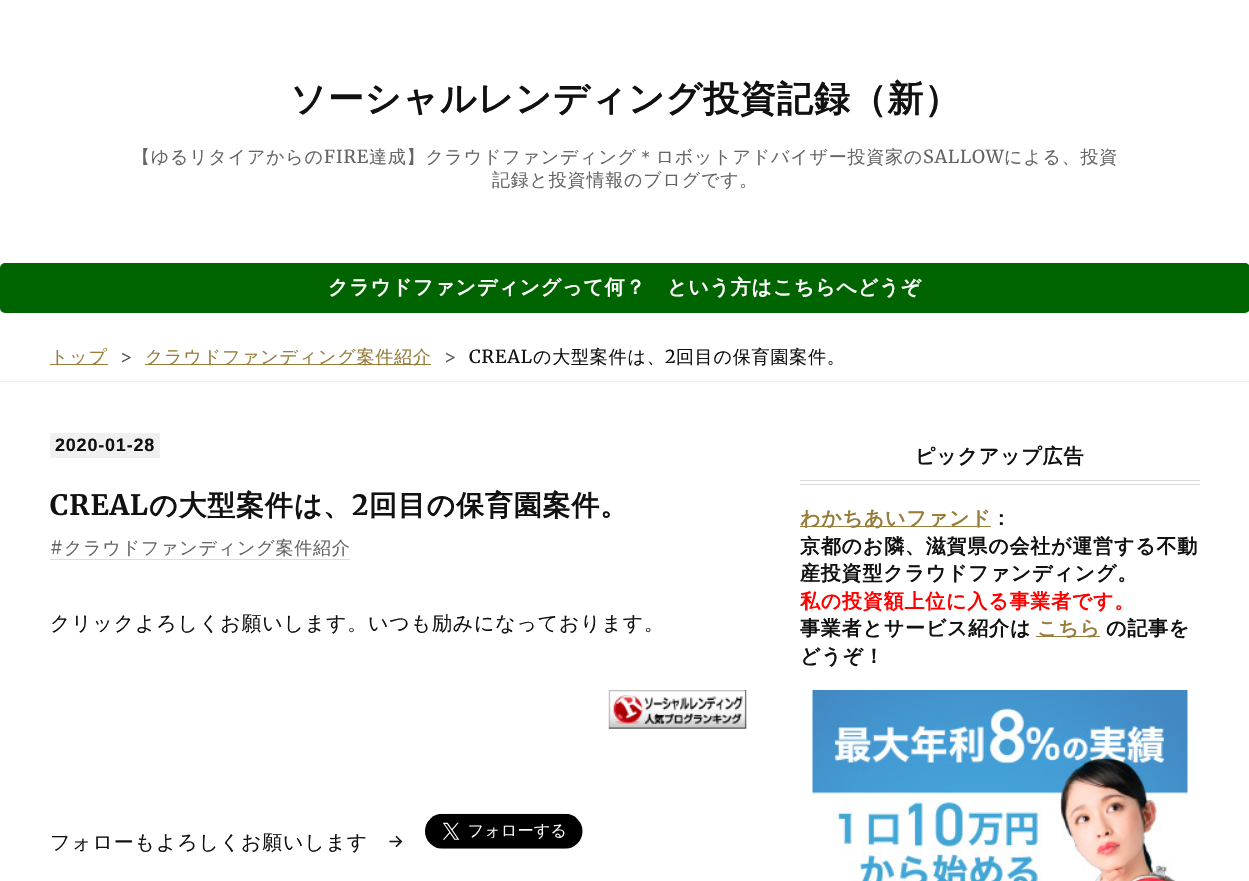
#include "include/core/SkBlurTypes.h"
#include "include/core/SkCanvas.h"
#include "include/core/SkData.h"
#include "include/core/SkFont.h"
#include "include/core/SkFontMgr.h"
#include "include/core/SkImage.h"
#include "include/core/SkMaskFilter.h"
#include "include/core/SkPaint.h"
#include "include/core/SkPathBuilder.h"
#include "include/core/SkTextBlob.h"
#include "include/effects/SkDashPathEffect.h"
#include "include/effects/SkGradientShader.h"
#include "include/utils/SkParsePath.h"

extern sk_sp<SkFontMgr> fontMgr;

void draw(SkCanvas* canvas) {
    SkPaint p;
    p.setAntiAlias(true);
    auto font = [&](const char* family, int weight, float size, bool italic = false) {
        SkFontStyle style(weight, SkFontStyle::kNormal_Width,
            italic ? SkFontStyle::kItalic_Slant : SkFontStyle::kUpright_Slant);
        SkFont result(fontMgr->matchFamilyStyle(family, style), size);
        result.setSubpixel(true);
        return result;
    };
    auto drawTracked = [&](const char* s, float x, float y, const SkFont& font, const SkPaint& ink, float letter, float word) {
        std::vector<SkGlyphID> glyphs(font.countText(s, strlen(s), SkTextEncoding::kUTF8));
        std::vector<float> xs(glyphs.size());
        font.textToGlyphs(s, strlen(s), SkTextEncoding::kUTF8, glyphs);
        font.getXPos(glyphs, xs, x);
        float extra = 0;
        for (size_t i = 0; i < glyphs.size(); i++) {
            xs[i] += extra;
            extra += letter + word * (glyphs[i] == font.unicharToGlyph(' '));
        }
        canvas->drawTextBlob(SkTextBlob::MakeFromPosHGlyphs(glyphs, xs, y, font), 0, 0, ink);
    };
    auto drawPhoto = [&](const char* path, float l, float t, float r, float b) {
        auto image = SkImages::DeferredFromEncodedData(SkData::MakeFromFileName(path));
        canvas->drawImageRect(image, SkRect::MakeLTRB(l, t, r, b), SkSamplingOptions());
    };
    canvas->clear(0xFFFFFFFF);
    auto font1 = font("WenQuanYi Zen Hei", 700, 36);
    p.setColor(0xFF111111);
    drawTracked("ソーシャルレンディング投資記録（新）", 290, 111, font1, p, 0.8f, 0);
    auto font2 = font("WenQuanYi Zen Hei", 500, 18);
    p.setColor(0xFF666666);
    drawTracked("【ゆるリタイアからの", 132, 163, font2, p, 0.8f, 0);
    auto font3 = font("Merriweather", 400, 18);
    drawTracked("FIRE", 324, 163, font3, p, 0.8f, 0);
    drawTracked("達成】クラウドファンディング＊ロボットアドバイザー投資家の", 369, 163, font2, p, 0.8f, 0);
    drawTracked("SALLOW", 923, 163, font3, p, 0.8f, 0);
    drawTracked("による、投資", 1004, 163, font2, p, 0.8f, 0);
    drawTracked("記録と投資情報のブログです。", 492, 186, font2, p, 0.8f, 0);
    p.setColor(0xFF006400);
    canvas->drawRoundRect(SkRect::MakeLTRB(1.5f, 264.5f, 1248.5f, 311.5f), 3.5f, 3.5f, p);
    p.setStyle(SkPaint::kStroke_Style);
    p.setStrokeWidth(3);
    canvas->drawRoundRect(SkRect::MakeLTRB(1.5f, 264.5f, 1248.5f, 311.5f), 3.5f, 3.5f, p);
    auto font4 = font("WenQuanYi Zen Hei", 700, 20);
    p.setStyle(SkPaint::kFill_Style);
    p.setColor(0xFFFFFFFF);
    drawTracked("クラウドファンディングって何？　という方はこちらへどうぞ", 328, 294, font4, p, 0.8f, 0);
    p.setColor(0xFF977D3B);
    canvas->drawRect(SkRect::MakeLTRB(50, 364, 108, 365), p);
    drawTracked("トップ", 50, 363, font2, p, 0.8f, 0);
    p.setColor(0xFF585858);
    drawTracked(">", 120, 363, font3, p, 0.8f, 0);
    p.setColor(0xFF977D3B);
    canvas->drawRect(SkRect::MakeLTRB(145, 364, 431, 365), p);
    drawTracked("クラウドファンディング案件紹介", 145, 363, font2, p, 0.8f, 0);
    p.setColor(0xFF585858);
    drawTracked(">", 444, 363, font3, p, 0.8f, 0);
    p.setColor(0xFF111111);
    drawTracked("CREAL", 469, 363, font3, p, 0.8f, 0);
    drawTracked("の大型案件は、", 533, 363, font2, p, 0.8f, 0);
    drawTracked("2", 665, 363, font3, p, 0.8f, 0);
    drawTracked("回目の保育園案件。", 676, 363, font2, p, 0.8f, 0);
    p.setColor(0xFFF0F0F0);
    canvas->drawRect(SkRect::MakeLTRB(0, 381, 1249, 382), p);
    canvas->drawRect(SkRect::MakeLTRB(50, 433, 160, 458), p);
    auto font5 = font("Liberation Sans", 700, 18);
    p.setColor(0xFF111111);
    drawTracked("2020-01-28", 55, 451, font5, p, 0.8f, 0);
    auto font6 = font("Merriweather", 700, 28);
    drawTracked("CREAL", 50, 515, font6, p, 0.8f, 0);
    auto font7 = font("WenQuanYi Zen Hei", 700, 28);
    drawTracked("の大型案件は、", 149, 515, font7, p, 0.8f, 0);
    drawTracked("2", 352, 515, font6, p, 0.8f, 0);
    drawTracked("回目の保育園案件。", 369, 515, font7, p, 0.8f, 0);
    p.setColor(0xFF666666);
    drawTracked("#", 50, 554, font3, p, 0.8f, 0);
    drawTracked("クラウドファンディング案件紹介", 64, 554, font2, p, 0.8f, 0);
    p.setColor(0xFFDDDDDD);
    canvas->drawRect(SkRect::MakeLTRB(50, 559, 350, 560), p);
    auto font8 = font("WenQuanYi Zen Hei", 500, 20);
    p.setColor(0xFF111111);
    drawTracked("クリックよろしくお願いします。いつも励みになっております。", 50, 630, font8, p, 0.8f, 0);
    drawPhoto("media/1.png", 608, 690, 747, 729);
    drawTracked("フォローもよろしくお願いします", 50, 849, font8, p, 0.8f, 0);
    auto font9 = font("Merriweather", 400, 20);
    drawTracked("→", 389, 849, font9, p, 0.8f, 0);
    drawPhoto("media/2.png", 425, 813, 583, 849);
    p.setColor(0xFFDDDDDD);
    canvas->drawRect(SkRect::MakeLTRB(800, 480, 1200, 481), p);
    canvas->drawRect(SkRect::MakeLTRB(800, 484, 1200, 485), p);
    p.setColor(0xFF111111);
    drawTracked("ピックアップ広告", 915, 463, font4, p, 0.8f, 0);
    p.setColor(0xFF977D3B);
    canvas->drawRect(SkRect::MakeLTRB(800, 526, 991, 527), p);
    drawTracked("わかちあいファンド", 800, 525, font4, p, 0.8f, 0);
    p.setColor(0xFF111111);
    {
        const struct { const char* s; float x, y; } items[] = {
            {"：", 991, 525},
            {"京都のお隣、滋賀県の会社が運営する不動", 800, 553},
            {"産投資型クラウドファンディング。", 800, 580},
        };
        for (auto [s, x, y] : items) {
            drawTracked(s, x, y, font4, p, 0.8f, 0);
        }
    }
    p.setColor(0xFFFF0000);
    drawTracked("私の投資額上位に入る事業者です。", 800, 608, font4, p, 0.8f, 0);
    p.setColor(0xFF111111);
    drawTracked("事業者とサービス紹介は", 800, 635, font4, p, 0.8f, 0);
    p.setColor(0xFF977D3B);
    canvas->drawRect(SkRect::MakeLTRB(1036, 636, 1100, 637), p);
    drawTracked("こちら", 1037, 635, font4, p, 0.8f, 0);
    p.setColor(0xFF111111);
    drawTracked("の記事を", 1106, 635, font4, p, 0.8f, 0);
    drawTracked("どうぞ！", 800, 663, font4, p, 0.8f, 0);
    drawPhoto("media/3.png", 812, 690, 1188, 881);
}
